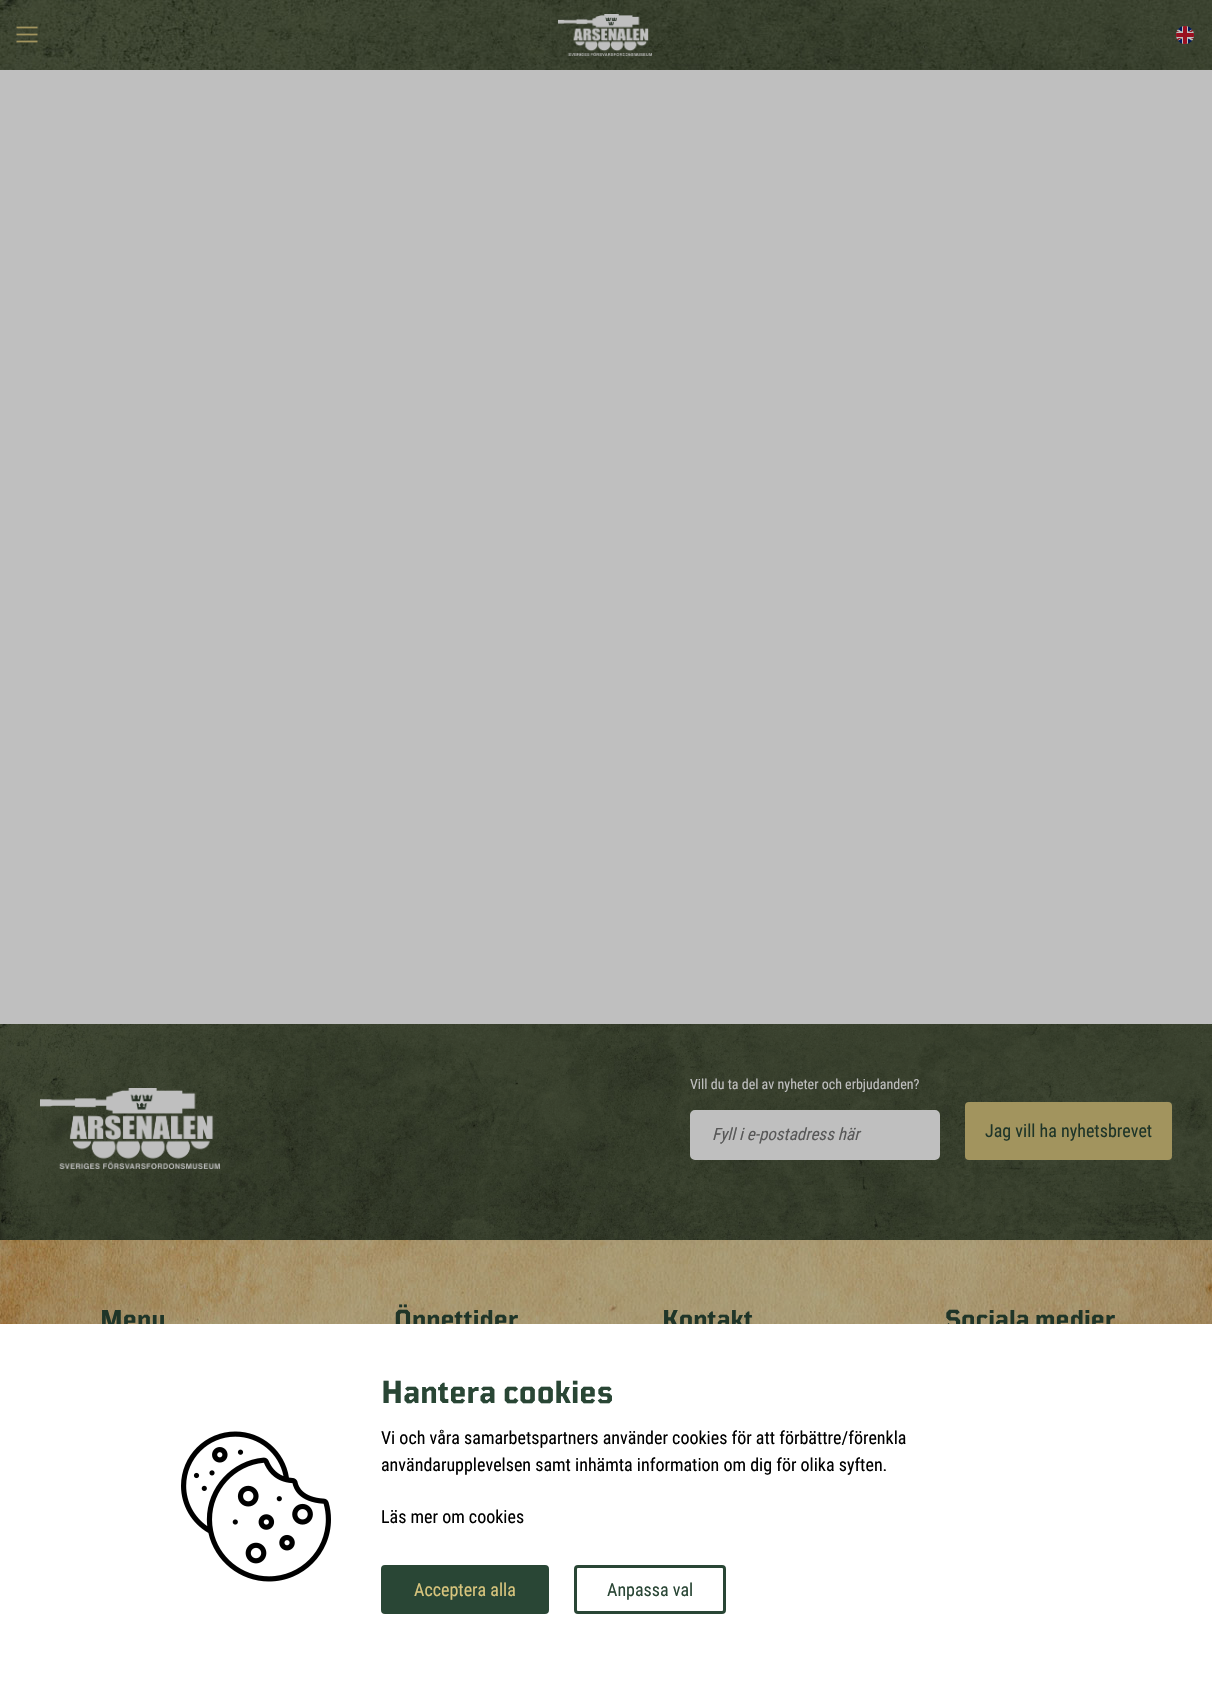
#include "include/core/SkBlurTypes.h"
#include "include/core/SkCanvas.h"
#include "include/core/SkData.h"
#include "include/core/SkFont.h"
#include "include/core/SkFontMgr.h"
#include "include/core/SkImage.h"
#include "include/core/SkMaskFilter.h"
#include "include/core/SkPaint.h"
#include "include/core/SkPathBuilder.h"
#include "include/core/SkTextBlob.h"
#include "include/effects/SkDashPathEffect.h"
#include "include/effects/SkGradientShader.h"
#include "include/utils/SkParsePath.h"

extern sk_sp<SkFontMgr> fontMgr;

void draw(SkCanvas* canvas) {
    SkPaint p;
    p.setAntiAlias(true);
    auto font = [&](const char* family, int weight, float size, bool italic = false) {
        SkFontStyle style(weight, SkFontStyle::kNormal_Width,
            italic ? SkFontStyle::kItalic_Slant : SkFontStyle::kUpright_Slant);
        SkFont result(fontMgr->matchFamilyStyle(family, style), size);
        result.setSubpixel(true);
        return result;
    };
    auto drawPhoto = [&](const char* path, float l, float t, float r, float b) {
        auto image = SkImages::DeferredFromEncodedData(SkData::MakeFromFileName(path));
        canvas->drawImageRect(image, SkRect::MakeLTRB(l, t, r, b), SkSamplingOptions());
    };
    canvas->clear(0xFFBFBFBF);
    drawPhoto("media/1.png", 0, 0, 1212, 70);
    drawPhoto("media/2.png", 16, 26, 38, 43);
    drawPhoto("media/3.png", 558, 14, 652, 56);
    drawPhoto("media/4.png", 1176, 26, 1194, 44);
    drawPhoto("media/5.png", 0, 1024, 1212, 1240);
    drawPhoto("media/6.png", 40, 1088, 220, 1169);
    auto font1 = font("Roboto Condensed", 400, 14);
    p.setColor(0xFFBFBFBF);
    canvas->drawString("Vill du ta del av nyheter och erbjudanden?", 690, 1089, font1, p);
    canvas->drawRoundRect(SkRect::MakeLTRB(691, 1111, 939, 1159), 4, 4, p);
    p.setStyle(SkPaint::kStroke_Style);
    p.setStrokeWidth(2);
    canvas->drawRoundRect(SkRect::MakeLTRB(691, 1111, 939, 1159), 4, 4, p);
    auto font2 = font("Roboto Condensed", 400, 17, true);
    p.setStyle(SkPaint::kFill_Style);
    p.setColor(0xFF585858);
    canvas->drawString("Fyll i e-postadress här", 712, 1140, font2, p);
    p.setColor(0xFFA2945E);
    canvas->drawRoundRect(SkRect::MakeLTRB(966.5f, 1103.5f, 1170.5f, 1158.5f), 2.5f, 2.5f, p);
    p.setStyle(SkPaint::kStroke_Style);
    p.setStrokeWidth(3);
    canvas->drawRoundRect(SkRect::MakeLTRB(966.5f, 1103.5f, 1170.5f, 1158.5f), 2.5f, 2.5f, p);
    auto font3 = font("Roboto Condensed", 400, 18);
    p.setStyle(SkPaint::kFill_Style);
    p.setColor(0xFF1F3528);
    canvas->drawString("Jag vill ha nyhetsbrevet", 985, 1137, font3, p);
    drawPhoto("media/7.png", 0, 1240, 1212, 1324);
    auto font4 = font("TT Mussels", 700, 26);
    {
        const struct { const char* s; float x, y; } items[] = {
            {"Meny", 100, 1328},
            {"Öppettider", 394, 1328},
            {"Kontakt", 662, 1328},
            {"Sociala medier", 945, 1328},
        };
        for (auto [s, x, y] : items) {
            canvas->drawString(s, x, y, font4, p);
        }
    }
    p.setColor(0xFFFFFFFF);
    canvas->drawRect(SkRect::MakeLTRB(0, 1324, 1212, 1689), p);
    drawPhoto("media/8.png", 181, 1431, 331, 1582);
    auto font5 = font("TT Mussels", 700, 32);
    p.setColor(0xFF294635);
    canvas->drawString("Hantera cookies", 381, 1403, font5, p);
    p.setColor(0xFF000000);
    {
        const struct { const char* s; float x, y; } items[] = {
            {"Vi och våra samarbetspartners använder cookies för att förbättre/förenkla", 381, 1444},
            {"användarupplevelsen samt inhämta information om dig för olika syften.", 381, 1471},
            {"Läs mer om cookies", 381, 1523},
        };
        for (auto [s, x, y] : items) {
            canvas->drawString(s, x, y, font3, p);
        }
    }
    p.setColor(0xFF294635);
    canvas->drawRoundRect(SkRect::MakeLTRB(382.5f, 1566.5f, 547.5f, 1612.5f), 2.5f, 2.5f, p);
    p.setStyle(SkPaint::kStroke_Style);
    canvas->drawRoundRect(SkRect::MakeLTRB(382.5f, 1566.5f, 547.5f, 1612.5f), 2.5f, 2.5f, p);
    p.setStyle(SkPaint::kFill_Style);
    p.setColor(0xFFD8C57D);
    canvas->drawString("Acceptera alla", 414, 1596, font3, p);
    p.setStyle(SkPaint::kStroke_Style);
    p.setColor(0xFF294635);
    canvas->drawRoundRect(SkRect::MakeLTRB(575.5f, 1566.5f, 724.5f, 1612.5f), 2.5f, 2.5f, p);
    p.setStyle(SkPaint::kFill_Style);
    canvas->drawString("Anpassa val", 607, 1596, font3, p);
}
